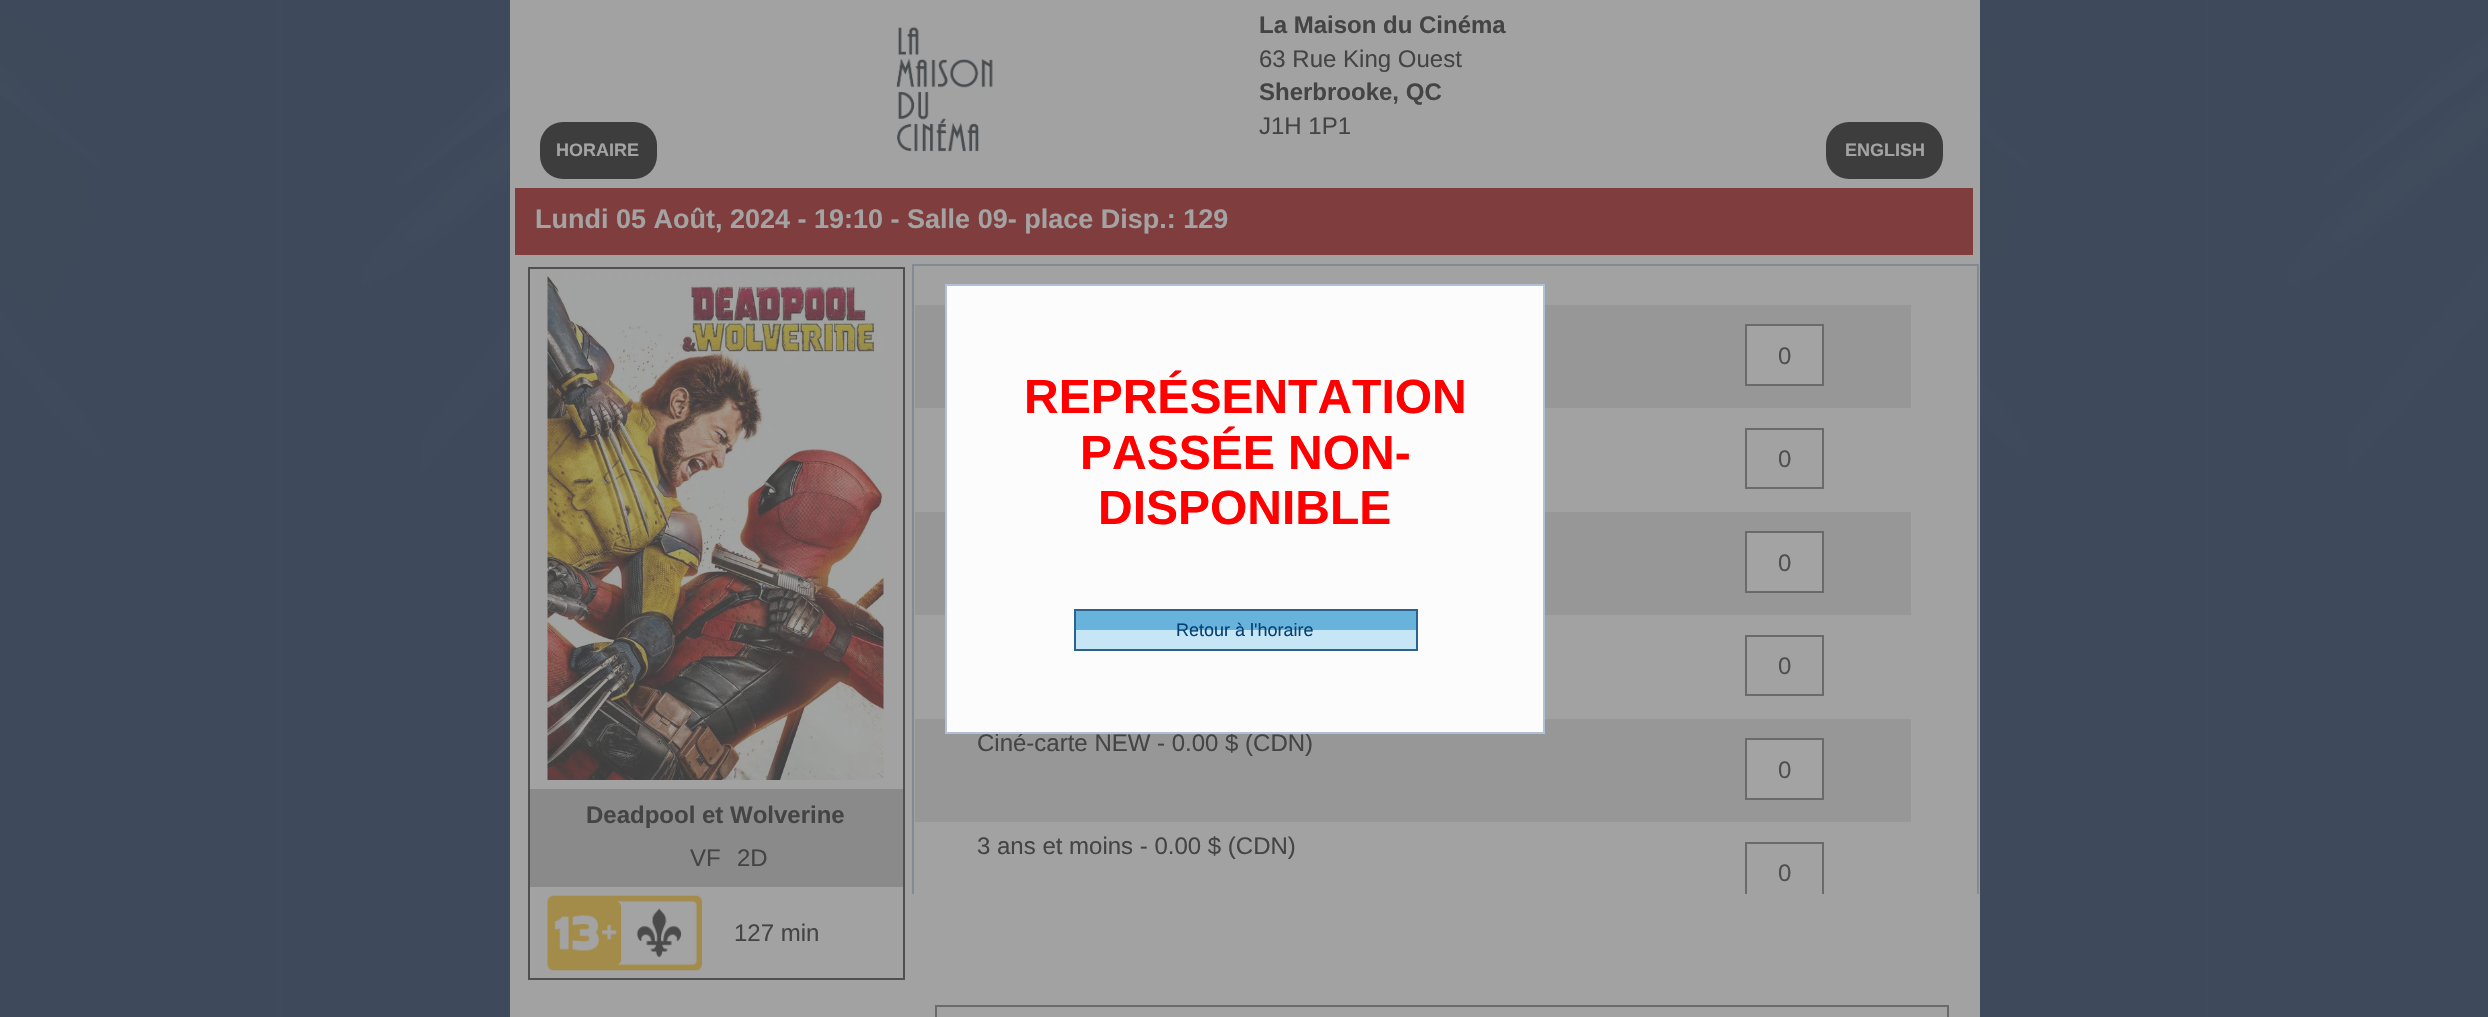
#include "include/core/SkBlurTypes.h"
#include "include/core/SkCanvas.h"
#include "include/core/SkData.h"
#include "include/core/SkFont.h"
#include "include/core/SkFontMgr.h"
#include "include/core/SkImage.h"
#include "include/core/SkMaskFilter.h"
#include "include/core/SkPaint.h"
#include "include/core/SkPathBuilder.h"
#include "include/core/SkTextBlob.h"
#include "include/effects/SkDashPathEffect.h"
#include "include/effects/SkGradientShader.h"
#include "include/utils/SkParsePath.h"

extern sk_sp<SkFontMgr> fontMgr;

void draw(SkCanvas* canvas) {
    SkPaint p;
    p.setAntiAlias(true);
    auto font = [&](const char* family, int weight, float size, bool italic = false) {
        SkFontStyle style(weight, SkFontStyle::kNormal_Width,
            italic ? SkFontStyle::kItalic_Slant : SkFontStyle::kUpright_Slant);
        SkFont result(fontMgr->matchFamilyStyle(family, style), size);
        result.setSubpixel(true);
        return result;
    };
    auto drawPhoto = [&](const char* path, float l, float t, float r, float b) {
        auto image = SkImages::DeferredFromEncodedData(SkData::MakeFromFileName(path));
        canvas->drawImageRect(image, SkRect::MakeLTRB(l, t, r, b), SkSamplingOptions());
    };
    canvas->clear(0xFFFFFFFF);
    drawPhoto("media/1.png", 0, 0, 2488, 1017);
    p.setColor(0xFFA2A2A2);
    canvas->drawRect(SkRect::MakeLTRB(510, 0, 1980, 1017), p);
    p.setColor(0xFF3D3D3D);
    canvas->drawRoundRect(SkRect::MakeLTRB(540, 122, 657, 179), 23, 23, p);
    auto font1 = font("Liberation Sans", 700, 18);
    p.setColor(0xFFA3A3A3);
    canvas->drawString("HORAIRE", 556, 156, font1, p);
    drawPhoto("media/2.png", 896, 26, 993, 152);
    auto font2 = font("Liberation Sans", 700, 24);
    p.setColor(0xFF444444);
    canvas->drawString("La Maison du Cinéma", 1259, 33, font2, p);
    auto font3 = font("Liberation Sans", 400, 24);
    canvas->drawString("63 Rue King Ouest", 1259, 67, font3, p);
    canvas->drawString("Sherbrooke, QC", 1259, 100, font2, p);
    canvas->drawString("J1H 1P1", 1259, 134, font3, p);
    p.setColor(0xFF3D3D3D);
    canvas->drawRoundRect(SkRect::MakeLTRB(1826, 122, 1943, 179), 23, 23, p);
    p.setColor(0xFFA3A3A3);
    canvas->drawString("ENGLISH", 1845, 156, font1, p);
    p.setColor(0xFF803D3D);
    canvas->drawRect(SkRect::MakeLTRB(515, 188, 1973, 255), p);
    auto font4 = font("Liberation Sans", 700, 27);
    p.setColor(0xFFA3A3A3);
    canvas->drawString("Lundi 05 Août, 2024 - 19:10 - Salle 09- place Disp.: 129", 535, 228, font4, p);
    p.setStyle(SkPaint::kStroke_Style);
    p.setStrokeWidth(2);
    p.setColor(0xFF505050);
    canvas->drawRect(SkRect::MakeLTRB(529, 268, 904, 979), p);
    drawPhoto("media/3.png", 547, 276, 884, 780);
    p.setStyle(SkPaint::kFill_Style);
    p.setColor(0xFF8A8A8A);
    canvas->drawRect(SkRect::MakeLTRB(530, 789, 903, 887), p);
    p.setColor(0xFF444444);
    canvas->drawString("Deadpool et Wolverine", 586, 823, font2, p);
    canvas->drawString("VF", 690, 866, font3, p);
    canvas->drawString("2D", 737, 866, font3, p);
    drawPhoto("media/4.png", 547, 895, 702, 971);
    canvas->drawString("127 min", 734, 941, font3, p);
    canvas->save();
    canvas->clipRect(SkRect::MakeLTRB(912, 264, 1979, 894));
    p.setStyle(SkPaint::kStroke_Style);
    p.setColor(0xFF838A93);
    canvas->drawRect(SkRect::MakeLTRB(913, 265, 1978, 928), p);
    canvas->restore();
    p.setStyle(SkPaint::kFill_Style);
    p.setColor(0xFF979797);
    canvas->drawRect(SkRect::MakeLTRB(915, 305, 1911, 408), p);
    p.setColor(0xFFA3A3A3);
    canvas->drawRect(SkRect::MakeLTRB(1746, 325, 1823, 385), p);
    p.setStyle(SkPaint::kStroke_Style);
    p.setColor(0xFF6A6A6A);
    canvas->drawRect(SkRect::MakeLTRB(1746, 325, 1823, 385), p);
    p.setStyle(SkPaint::kFill_Style);
    p.setColor(0xFF4F4F4F);
    canvas->drawString("0", 1778, 364, font3, p);
    p.setStyle(SkPaint::kStroke_Style);
    p.setColor(0xFF6A6A6A);
    canvas->drawRect(SkRect::MakeLTRB(1746, 429, 1823, 488), p);
    p.setStyle(SkPaint::kFill_Style);
    p.setColor(0xFF4F4F4F);
    canvas->drawString("0", 1778, 467, font3, p);
    p.setColor(0xFF979797);
    canvas->drawRect(SkRect::MakeLTRB(915, 512, 1911, 615), p);
    p.setColor(0xFFA3A3A3);
    canvas->drawRect(SkRect::MakeLTRB(1746, 532, 1823, 592), p);
    p.setStyle(SkPaint::kStroke_Style);
    p.setColor(0xFF6A6A6A);
    canvas->drawRect(SkRect::MakeLTRB(1746, 532, 1823, 592), p);
    p.setStyle(SkPaint::kFill_Style);
    p.setColor(0xFF4F4F4F);
    canvas->drawString("0", 1778, 571, font3, p);
    p.setStyle(SkPaint::kStroke_Style);
    p.setColor(0xFF6A6A6A);
    canvas->drawRect(SkRect::MakeLTRB(1746, 636, 1823, 695), p);
    p.setStyle(SkPaint::kFill_Style);
    p.setColor(0xFF4F4F4F);
    canvas->drawString("0", 1778, 674, font3, p);
    p.setColor(0xFF979797);
    canvas->drawRect(SkRect::MakeLTRB(915, 719, 1911, 822), p);
    p.setColor(0xFF444444);
    canvas->drawString("Ciné-carte NEW - 0.00 $ (CDN)", 977, 751, font3, p);
    p.setColor(0xFFA3A3A3);
    canvas->drawRect(SkRect::MakeLTRB(1746, 739, 1823, 799), p);
    p.setStyle(SkPaint::kStroke_Style);
    p.setColor(0xFF6A6A6A);
    canvas->drawRect(SkRect::MakeLTRB(1746, 739, 1823, 799), p);
    p.setStyle(SkPaint::kFill_Style);
    p.setColor(0xFF4F4F4F);
    canvas->drawString("0", 1778, 778, font3, p);
    p.setColor(0xFF444444);
    canvas->drawString("3 ans et moins - 0.00 $ (CDN)", 977, 854, font3, p);
    canvas->save();
    canvas->clipRect(SkRect::MakeLTRB(912, 264, 1979, 894));
    p.setStyle(SkPaint::kStroke_Style);
    p.setColor(0xFF6A6A6A);
    canvas->drawRect(SkRect::MakeLTRB(1746, 843, 1823, 902), p);
    canvas->restore();
    p.setStyle(SkPaint::kFill_Style);
    p.setColor(0xFF4F4F4F);
    canvas->drawString("0", 1778, 881, font3, p);
    p.setStyle(SkPaint::kStroke_Style);
    p.setColor(0xFF6A6A6A);
    canvas->drawRect(SkRect::MakeLTRB(936, 1006, 1948, 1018), p);
    p.setStyle(SkPaint::kFill_Style);
    p.setColor(0xFFFCFCFC);
    canvas->drawRect(SkRect::MakeLTRB(946, 285, 1544, 733), p);
    p.setStyle(SkPaint::kStroke_Style);
    p.setColor(0xFFAFC0D7);
    canvas->drawRect(SkRect::MakeLTRB(946, 285, 1544, 733), p);
    auto font5 = font("Liberation Sans", 700, 48);
    p.setStyle(SkPaint::kFill_Style);
    p.setColor(0xFFFF0000);
    {
        const struct { const char* s; float x, y; } items[] = {
            {"REPRÉSENTATION", 1024, 413},
            {"PASSÉE NON-", 1080, 469},
            {"DISPONIBLE", 1098, 524},
        };
        for (auto [s, x, y] : items) {
            canvas->drawString(s, x, y, font5, p);
        }
    }
    p.setColor(0xFF68B3DB);
    canvas->drawRect(SkRect::MakeLTRB(1076, 611, 1416, 630), p);
    p.setColor(0xFFC6E6F6);
    canvas->drawRect(SkRect::MakeLTRB(1076, 630, 1416, 649), p);
    p.setStyle(SkPaint::kStroke_Style);
    p.setColor(0xFF2C628B);
    canvas->drawRect(SkRect::MakeLTRB(1075, 610, 1417, 650), p);
    auto font6 = font("Liberation Sans", 400, 18);
    p.setStyle(SkPaint::kFill_Style);
    p.setColor(0xFF054173);
    canvas->drawString("Retour à l'horaire", 1176, 636, font6, p);
}
